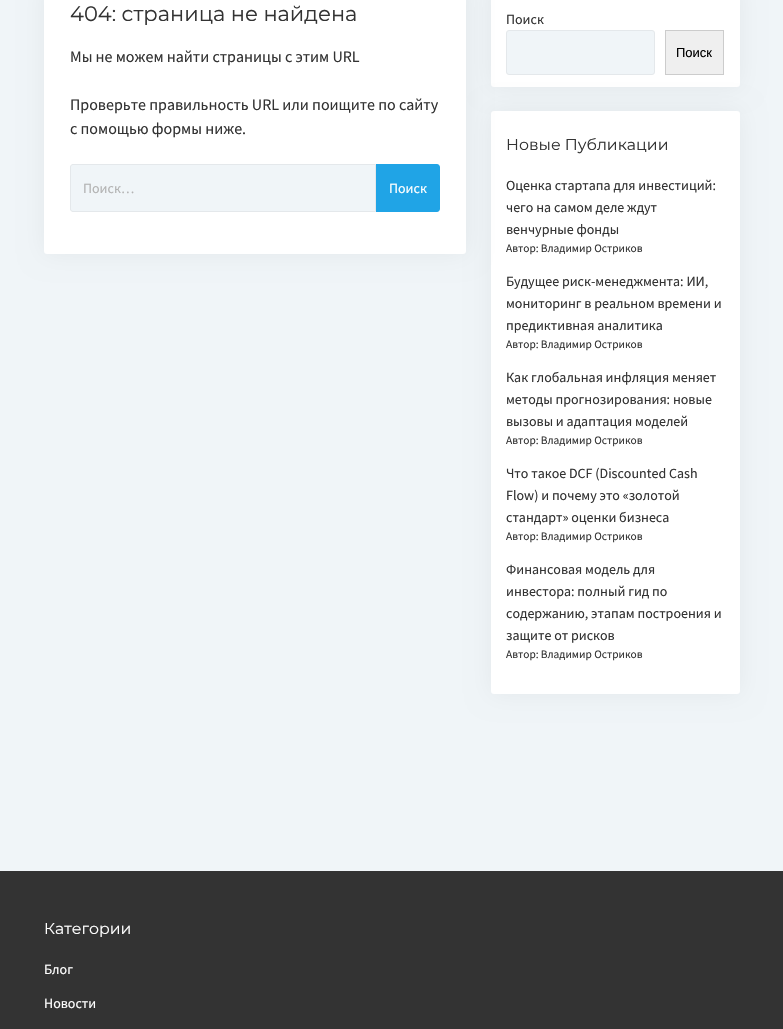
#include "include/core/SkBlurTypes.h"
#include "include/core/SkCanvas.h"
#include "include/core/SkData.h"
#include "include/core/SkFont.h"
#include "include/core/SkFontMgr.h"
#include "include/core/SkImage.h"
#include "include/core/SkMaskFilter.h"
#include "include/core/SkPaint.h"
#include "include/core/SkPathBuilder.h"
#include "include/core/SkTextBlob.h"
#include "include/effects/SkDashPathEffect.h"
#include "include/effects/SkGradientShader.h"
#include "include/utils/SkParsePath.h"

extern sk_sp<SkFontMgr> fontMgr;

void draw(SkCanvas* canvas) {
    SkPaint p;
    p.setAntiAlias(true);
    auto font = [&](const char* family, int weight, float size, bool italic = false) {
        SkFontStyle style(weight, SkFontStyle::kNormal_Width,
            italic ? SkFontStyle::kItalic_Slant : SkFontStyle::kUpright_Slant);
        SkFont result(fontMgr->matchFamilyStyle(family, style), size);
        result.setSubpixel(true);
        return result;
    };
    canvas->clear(0xFFF0F5F8);
    p.setColor(0x0D000000);
    p.setMaskFilter(SkMaskFilter::MakeBlur(kNormal_SkBlurStyle, 12));
    canvas->drawRoundRect(SkRect::MakeLTRB(491, -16, 740, 87), 3, 3, p);
    p.setMaskFilter(nullptr);
    p.setColor(0xFFFFFFFF);
    canvas->drawRoundRect(SkRect::MakeLTRB(491, -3, 740, 87), 3, 3, p);
    p.setColor(0x0D000000);
    p.setMaskFilter(SkMaskFilter::MakeBlur(kNormal_SkBlurStyle, 12));
    canvas->drawRoundRect(SkRect::MakeLTRB(491, 111, 740, 694), 3, 3, p);
    p.setMaskFilter(nullptr);
    p.setColor(0xFFFFFFFF);
    canvas->drawRoundRect(SkRect::MakeLTRB(491, 111, 740, 694), 3, 3, p);
    p.setColor(0x0D000000);
    p.setMaskFilter(SkMaskFilter::MakeBlur(kNormal_SkBlurStyle, 12));
    canvas->drawRoundRect(SkRect::MakeLTRB(44, -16, 466, 254), 3, 3, p);
    p.setMaskFilter(nullptr);
    p.setColor(0xFFFFFFFF);
    canvas->drawRoundRect(SkRect::MakeLTRB(44, -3, 466, 254), 3, 3, p);
    auto font1 = font("Montserrat", 100, 21);
    p.setColor(0xFF333333);
    canvas->drawString("404: страница не найдена", 70, 21, font1, p);
    auto font2 = font("Source Sans Pro", 400, 16);
    {
        const struct { const char* s; float x, y; } items[] = {
            {"Мы не можем найти страницы с этим URL", 70, 62},
            {"Проверьте правильность URL или поищите по сайту", 70, 110},
            {"с помощью формы ниже.", 70, 134},
        };
        for (auto [s, x, y] : items) {
            canvas->drawString(s, x, y, font2, p);
        }
    }
    p.setColor(0xFFF0F5F8);
    canvas->drawPath(SkPathBuilder().moveTo(73, 164.5f).lineTo(375.5f, 164.5f).lineTo(375.5f, 211.5f).lineTo(73, 211.5f).cubicTo(71.5f, 211.5f, 70.5f, 210.5f, 70.5f, 209).lineTo(70.5f, 167).cubicTo(70.5f, 165.5f, 71.5f, 164.5f, 73, 164.5f).close().detach(), p);
    p.setStyle(SkPaint::kStroke_Style);
    p.setStrokeWidth(1);
    p.setColor(0xFFE4E8EB);
    canvas->drawPath(SkPathBuilder().moveTo(73, 164.5f).lineTo(375.5f, 164.5f).lineTo(375.5f, 211.5f).lineTo(73, 211.5f).cubicTo(71.5f, 211.5f, 70.5f, 210.5f, 70.5f, 209).lineTo(70.5f, 167).cubicTo(70.5f, 165.5f, 71.5f, 164.5f, 73, 164.5f).close().detach(), p);
    auto font3 = font("Source Sans Pro", 400, 14);
    p.setStyle(SkPaint::kFill_Style);
    p.setColor(0xFFB3B3B3);
    canvas->drawString("Поиск…", 83, 193, font3, p);
    p.setColor(0xFF20A4E6);
    canvas->drawPath(SkPathBuilder().moveTo(376, 164).lineTo(437, 164).cubicTo(438.5f, 164, 440, 165.5f, 440, 167).lineTo(440, 209).cubicTo(440, 210.5f, 438.5f, 212, 437, 212).lineTo(376, 212).close().detach(), p);
    p.setColor(0xFFFFFFFF);
    canvas->drawString("Поиск", 389, 193, font3, p);
    p.setColor(0xFF333333);
    canvas->drawString("Поиск", 506, 24, font3, p);
    p.setColor(0xFFF0F5F8);
    canvas->drawRoundRect(SkRect::MakeLTRB(506.5f, 30.5f, 654.5f, 74.5f), 2.5f, 2.5f, p);
    p.setStyle(SkPaint::kStroke_Style);
    p.setColor(0xFFE4E8EB);
    canvas->drawRoundRect(SkRect::MakeLTRB(506.5f, 30.5f, 654.5f, 74.5f), 2.5f, 2.5f, p);
    p.setStyle(SkPaint::kFill_Style);
    p.setColor(0xFFEFEFEF);
    canvas->drawRect(SkRect::MakeLTRB(665.5f, 30.5f, 723.5f, 74.5f), p);
    p.setStyle(SkPaint::kStroke_Style);
    p.setColor(0xFFCCCCCC);
    canvas->drawRect(SkRect::MakeLTRB(665.5f, 30.5f, 723.5f, 74.5f), p);
    auto font4 = font("Liberation Sans", 400, 13);
    p.setStyle(SkPaint::kFill_Style);
    p.setColor(0xFF000000);
    canvas->drawString("Поиск", 676, 57, font4, p);
    auto font5 = font("Montserrat", 100, 15.75f);
    p.setColor(0xFF333333);
    canvas->drawString("Новые Публикации", 506, 150, font5, p);
    {
        const struct { const char* s; float x, y; } items[] = {
            {"Оценка стартапа для инвестиций:", 506, 190},
            {"чего на самом деле ждут", 506, 212},
            {"венчурные фонды", 506, 234},
        };
        for (auto [s, x, y] : items) {
            canvas->drawString(s, x, y, font3, p);
        }
    }
    auto font6 = font("Source Sans Pro", 400, 11.4f);
    canvas->drawString("Автор: Владимир Остриков", 506, 252, font6, p);
    {
        const struct { const char* s; float x, y; } items[] = {
            {"Будущее риск-менеджмента: ИИ,", 506, 286},
            {"мониторинг в реальном времени и", 506, 308},
            {"предиктивная аналитика", 506, 330},
        };
        for (auto [s, x, y] : items) {
            canvas->drawString(s, x, y, font3, p);
        }
    }
    canvas->drawString("Автор: Владимир Остриков", 506, 348, font6, p);
    {
        const struct { const char* s; float x, y; } items[] = {
            {"Как глобальная инфляция меняет", 506, 382},
            {"методы прогнозирования: новые", 506, 404},
            {"вызовы и адаптация моделей", 506, 426},
        };
        for (auto [s, x, y] : items) {
            canvas->drawString(s, x, y, font3, p);
        }
    }
    canvas->drawString("Автор: Владимир Остриков", 506, 444, font6, p);
    {
        const struct { const char* s; float x, y; } items[] = {
            {"Что такое DCF (Discounted Cash", 506, 478},
            {"Flow) и почему это «золотой", 506, 500},
            {"стандарт» оценки бизнеса", 506, 522},
        };
        for (auto [s, x, y] : items) {
            canvas->drawString(s, x, y, font3, p);
        }
    }
    canvas->drawString("Автор: Владимир Остриков", 506, 540, font6, p);
    {
        const struct { const char* s; float x, y; } items[] = {
            {"Финансовая модель для", 506, 574},
            {"инвестора: полный гид по", 506, 596},
            {"содержанию, этапам построения и", 506, 618},
            {"защите от рисков", 506, 640},
        };
        for (auto [s, x, y] : items) {
            canvas->drawString(s, x, y, font3, p);
        }
    }
    canvas->drawString("Автор: Владимир Остриков", 506, 658, font6, p);
    canvas->drawRect(SkRect::MakeLTRB(0, 871, 783, 1029), p);
    p.setColor(0xFFFFFFFF);
    canvas->drawString("Категории", 44, 934, font5, p);
    canvas->drawString("Блог", 44, 974, font3, p);
    canvas->drawString("Новости", 44, 1008, font3, p);
}
